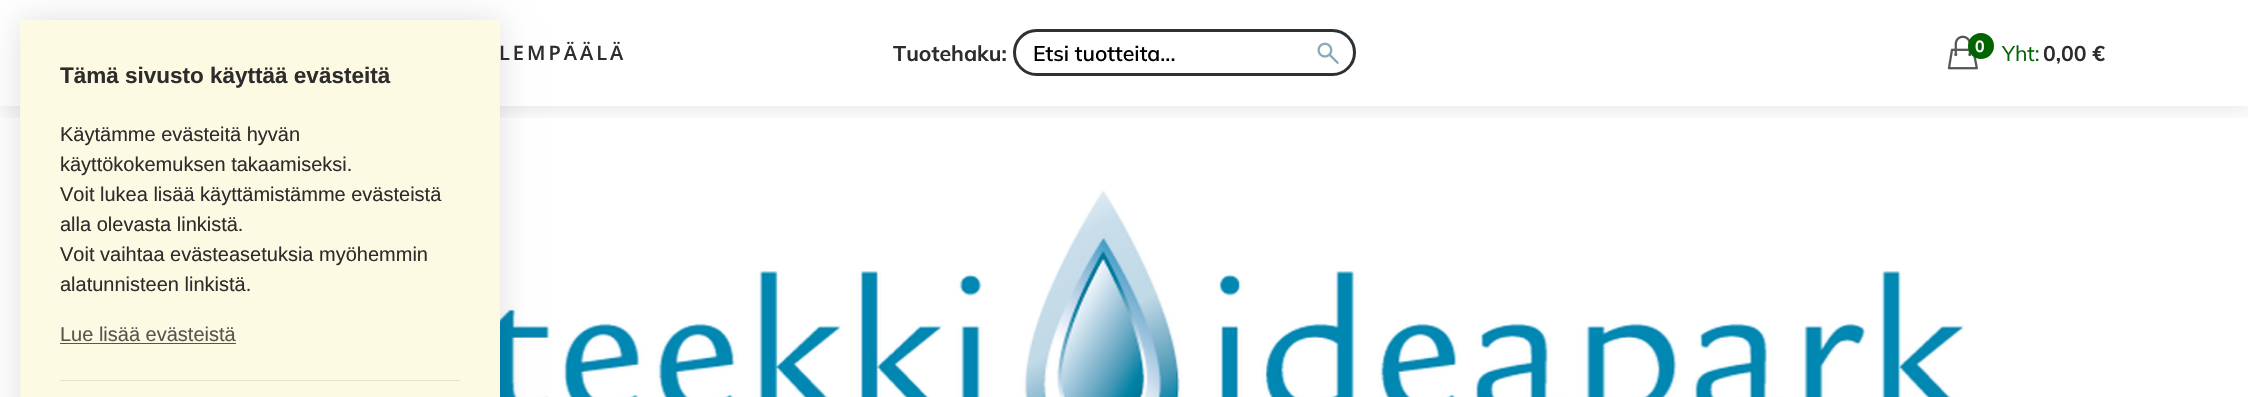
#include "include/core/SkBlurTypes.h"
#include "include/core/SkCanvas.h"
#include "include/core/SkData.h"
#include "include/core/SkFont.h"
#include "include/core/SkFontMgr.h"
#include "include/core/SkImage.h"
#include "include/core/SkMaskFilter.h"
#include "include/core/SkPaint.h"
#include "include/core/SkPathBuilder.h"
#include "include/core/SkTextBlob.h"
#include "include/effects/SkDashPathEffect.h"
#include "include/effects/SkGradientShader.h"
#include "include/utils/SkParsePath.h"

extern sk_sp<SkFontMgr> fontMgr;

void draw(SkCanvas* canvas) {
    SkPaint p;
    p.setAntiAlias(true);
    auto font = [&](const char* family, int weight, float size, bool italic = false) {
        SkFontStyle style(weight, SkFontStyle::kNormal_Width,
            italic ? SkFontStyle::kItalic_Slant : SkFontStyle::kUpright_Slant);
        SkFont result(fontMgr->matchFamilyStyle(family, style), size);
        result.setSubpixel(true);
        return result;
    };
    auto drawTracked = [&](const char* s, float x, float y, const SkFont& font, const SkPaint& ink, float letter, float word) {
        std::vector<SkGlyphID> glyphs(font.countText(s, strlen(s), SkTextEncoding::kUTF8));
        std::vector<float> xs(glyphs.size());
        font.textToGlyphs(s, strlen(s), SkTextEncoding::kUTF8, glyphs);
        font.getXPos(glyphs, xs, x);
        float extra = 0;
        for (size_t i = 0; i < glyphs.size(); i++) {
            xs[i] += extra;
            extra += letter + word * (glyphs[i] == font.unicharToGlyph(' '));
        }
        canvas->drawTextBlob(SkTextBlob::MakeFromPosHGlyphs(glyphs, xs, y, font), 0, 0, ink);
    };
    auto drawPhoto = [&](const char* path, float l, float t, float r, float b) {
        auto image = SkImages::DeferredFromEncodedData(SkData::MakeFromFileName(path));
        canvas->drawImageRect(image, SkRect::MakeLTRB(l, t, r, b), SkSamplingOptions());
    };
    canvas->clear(0xFFFFFFFF);
    canvas->save();
    canvas->clipRect(SkRect::MakeLTRB(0, 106, 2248, 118));
    p.setColor(0x1F000000);
    p.setMaskFilter(SkMaskFilter::MakeBlur(kNormal_SkBlurStyle, 12.5f));
    canvas->drawRect(SkRect::MakeLTRB(0, 0, 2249, 106), p);
    p.setMaskFilter(nullptr);
    canvas->restore();
    auto font1 = font("Open Sans", 600, 20);
    p.setColor(0xFF2D2D2D);
    drawTracked("LEMPÄÄLÄ", 499, 60, font1, p, 3, 0);
    auto font2 = font("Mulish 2", 200, 21.25f);
    canvas->drawString("Tuotehaku:", 893, 61, font2, p);
    p.setStyle(SkPaint::kStroke_Style);
    p.setStrokeWidth(3);
    p.setColor(0xFF2C3136);
    canvas->drawRoundRect(SkRect::MakeLTRB(1014.5f, 30.5f, 1354.5f, 74.5f), 22, 22, p);
    auto font3 = font("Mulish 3", 200, 21.25f);
    p.setStyle(SkPaint::kFill_Style);
    p.setColor(0xFF000000);
    canvas->drawString("Etsi tuotteita...", 1033, 61, font3, p);
    drawPhoto("media/1.png", 1317, 42, 1339, 64);
    drawPhoto("media/2.png", 1947, 35, 1978, 70);
    p.setColor(0xFF006400);
    canvas->drawCircle(1981, 46, 13, p);
    auto font4 = font("Mulish 2", 200, 16);
    p.setColor(0xFFFFFFFF);
    canvas->drawString("0", 1975, 52, font4, p);
    auto font5 = font("Mulish", 200, 21.25f);
    p.setColor(0xFF006400);
    canvas->drawString("Yht:", 2002, 61, font5, p);
    p.setColor(0xFF2D2D2D);
    canvas->drawString("0,00 €", 2043, 61, font2, p);
    drawPhoto("media/3.png", 500, 190, 1965, 397);
    p.setColor(0x1F000000);
    p.setMaskFilter(SkMaskFilter::MakeBlur(kNormal_SkBlurStyle, 15.5f));
    canvas->drawRect(SkRect::MakeLTRB(20, 20, 500, 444), p);
    p.setMaskFilter(nullptr);
    p.setColor(0xFFFCFAE3);
    canvas->drawRect(SkRect::MakeLTRB(20, 20, 500, 397), p);
    auto font6 = font("Liberation Sans", 700, 22.5f);
    p.setColor(0xFF2D2D2D);
    canvas->drawString("Tämä sivusto käyttää evästeitä", 60, 83, font6, p);
    auto font7 = font("Liberation Sans", 400, 20);
    {
        const struct { const char* s; float x, y; } items[] = {
            {"Käytämme evästeitä hyvän", 60, 141},
            {"käyttökokemuksen takaamiseksi.", 60, 171},
            {"Voit lukea lisää käyttämistämme evästeistä", 60, 201},
            {"alla olevasta linkistä.", 60, 231},
            {"Voit vaihtaa evästeasetuksia myöhemmin", 60, 261},
            {"alatunnisteen linkistä.", 60, 291},
        };
        for (auto [s, x, y] : items) {
            canvas->drawString(s, x, y, font7, p);
        }
    }
    p.setColor(0xFF565651);
    canvas->drawString("Lue lisää evästeistä", 60, 341, font7, p);
    canvas->drawRect(SkRect::MakeLTRB(60, 343, 236, 344), p);
    p.setColor(0xFFE3E1CC);
    canvas->drawRect(SkRect::MakeLTRB(60, 380, 460, 381), p);
}
